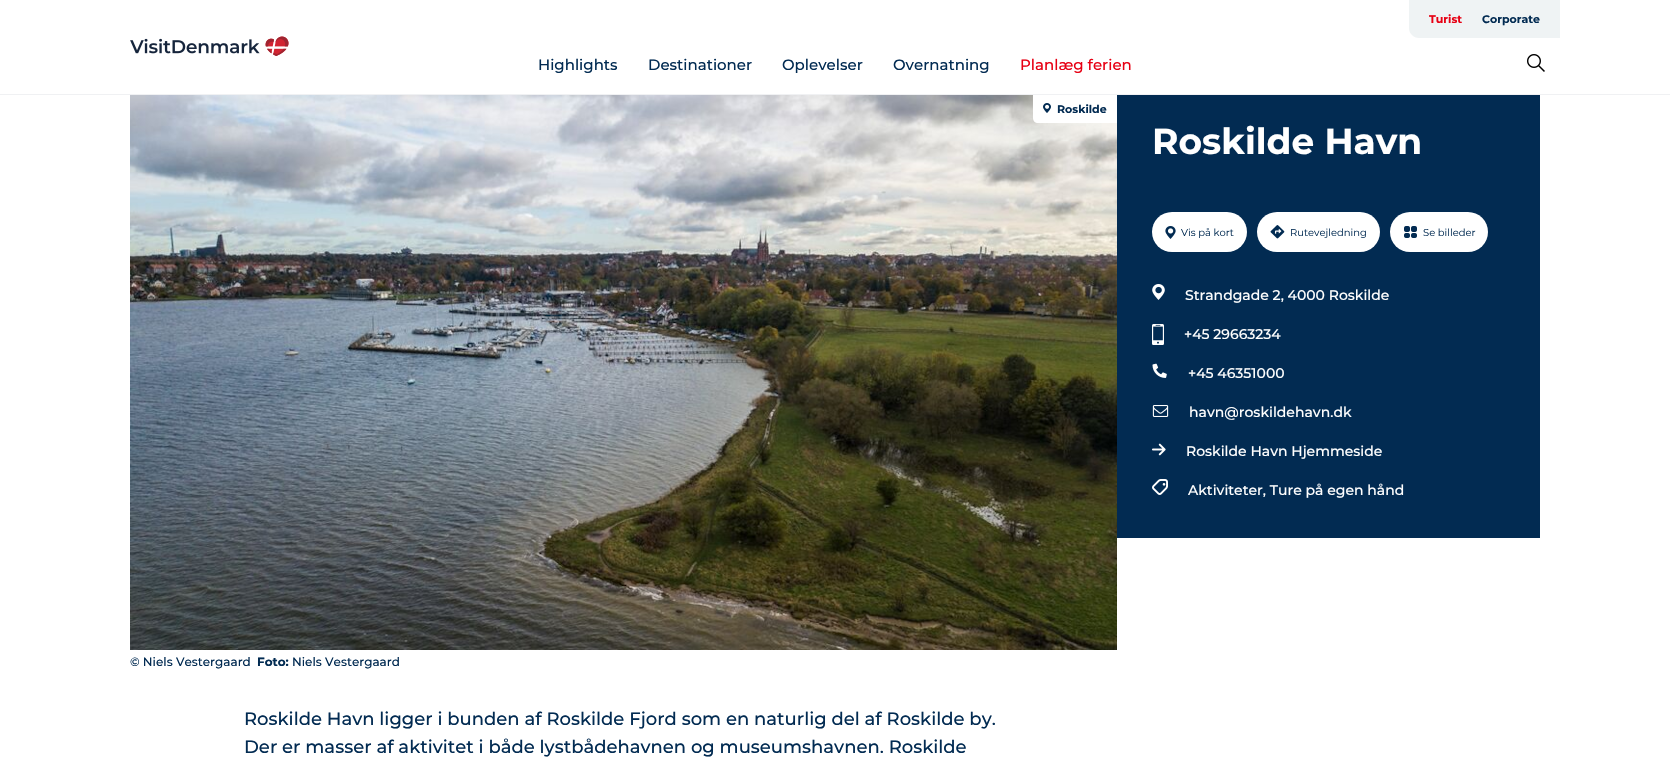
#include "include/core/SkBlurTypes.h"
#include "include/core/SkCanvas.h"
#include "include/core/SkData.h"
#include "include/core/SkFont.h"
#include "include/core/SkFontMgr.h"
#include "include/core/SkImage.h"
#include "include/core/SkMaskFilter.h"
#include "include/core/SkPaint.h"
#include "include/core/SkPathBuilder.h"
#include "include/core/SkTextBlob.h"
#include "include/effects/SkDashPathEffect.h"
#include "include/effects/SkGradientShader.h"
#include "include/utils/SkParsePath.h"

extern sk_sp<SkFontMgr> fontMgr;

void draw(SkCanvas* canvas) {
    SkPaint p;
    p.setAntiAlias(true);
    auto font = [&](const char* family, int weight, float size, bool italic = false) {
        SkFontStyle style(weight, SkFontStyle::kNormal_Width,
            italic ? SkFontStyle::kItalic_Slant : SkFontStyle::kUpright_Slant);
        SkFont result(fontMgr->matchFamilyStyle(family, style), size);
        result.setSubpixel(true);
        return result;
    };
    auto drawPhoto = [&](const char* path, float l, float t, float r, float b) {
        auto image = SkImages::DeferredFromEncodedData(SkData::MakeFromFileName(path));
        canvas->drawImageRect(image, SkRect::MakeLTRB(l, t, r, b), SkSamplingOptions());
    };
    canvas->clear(0xFFFFFFFF);
    p.setColor(0xFFF0F1F3);
    canvas->drawRect(SkRect::MakeLTRB(0, 94, 1670, 95), p);
    drawPhoto("media/1.png", 130, 36, 289, 56);
    p.setColor(0xFFEFF3F4);
    canvas->drawPath(SkPathBuilder().moveTo(1409, 0).lineTo(1560, 0).lineTo(1560, 38).lineTo(1419, 38).cubicTo(1413.5f, 38, 1409, 33.5f, 1409, 28).close().detach(), p);
    auto font1 = font("Montserrat", 700, 11);
    p.setColor(0xFFE70013);
    canvas->drawString("Turist", 1429, 23, font1, p);
    p.setColor(0xFF022B52);
    canvas->drawString("Corporate", 1482, 23, font1, p);
    auto font2 = font("Montserrat", 500, 15);
    {
        const struct { const char* s; float x, y; } items[] = {
            {"Highlights", 538, 70},
            {"Destinationer", 648, 70},
            {"Oplevelser", 782, 70},
            {"Overnatning", 893, 70},
        };
        for (auto [s, x, y] : items) {
            canvas->drawString(s, x, y, font2, p);
        }
    }
    p.setColor(0xFFE70013);
    canvas->drawString("Planlæg ferien", 1020, 70, font2, p);
    drawPhoto("media/2.png", 1527, 54, 1545, 72);
    drawPhoto("media/3.png", 130, 95, 1117, 650);
    p.setColor(0xFFFFFFFF);
    canvas->drawPath(SkPathBuilder().moveTo(1033, 95).lineTo(1117, 95).lineTo(1117, 123).lineTo(1038, 123).cubicTo(1035, 123, 1033, 121, 1033, 118).close().detach(), p);
    drawPhoto("media/4.png", 1043, 103, 1051, 113);
    p.setColor(0xFF022B52);
    canvas->drawString("Roskilde", 1057, 113, font1, p);
    auto font3 = font("Montserrat", 500, 12);
    canvas->drawString("© Niels Vestergaard", 130, 666, font3, p);
    auto font4 = font("Montserrat", 700, 12);
    canvas->drawString("Foto:", 257, 666, font4, p);
    canvas->drawString("Niels Vestergaard", 292, 666, font3, p);
    canvas->drawRect(SkRect::MakeLTRB(1117, 95, 1540, 538), p);
    auto font5 = font("Montserrat", 700, 36);
    p.setColor(0xFFFFFFFF);
    canvas->drawString("Roskilde Havn", 1152, 154, font5, p);
    canvas->drawRoundRect(SkRect::MakeLTRB(1152, 212, 1247, 252), 20, 20, p);
    drawPhoto("media/5.png", 1165, 226, 1176, 239);
    auto font6 = font("Montserrat", 400, 10);
    p.setColor(0xFF022B52);
    canvas->drawString("Vis på kort", 1181, 236, font6, p);
    p.setColor(0xFFFFFFFF);
    canvas->drawRoundRect(SkRect::MakeLTRB(1257, 212, 1380, 252), 20, 20, p);
    drawPhoto("media/6.png", 1270, 225, 1285, 239);
    p.setColor(0xFF022B52);
    canvas->drawString("Rutevejledning", 1290, 236, font6, p);
    p.setColor(0xFFFFFFFF);
    canvas->drawRoundRect(SkRect::MakeLTRB(1390, 212, 1488, 252), 20, 20, p);
    drawPhoto("media/7.png", 1404, 226, 1417, 238);
    p.setColor(0xFF022B52);
    canvas->drawString("Se billeder", 1423, 236, font6, p);
    drawPhoto("media/8.png", 1152, 284, 1165, 300);
    auto font7 = font("Montserrat", 500, 14);
    p.setColor(0xFFFFFFFF);
    canvas->drawString("Strandgade 2, 4000 Roskilde", 1185, 300, font7, p);
    drawPhoto("media/9.png", 1152, 324, 1164, 345);
    canvas->drawString("+45 29663234", 1184, 339, font7, p);
    drawPhoto("media/10.png", 1152, 363, 1167, 378);
    canvas->drawString("+45 46351000", 1188, 378, font7, p);
    drawPhoto("media/11.png", 1152, 405, 1169, 417);
    canvas->drawString("havn@roskildehavn.dk", 1189, 417, font7, p);
    drawPhoto("media/12.png", 1152, 443, 1166, 456);
    canvas->drawString("Roskilde Havn Hjemmeside", 1186, 456, font7, p);
    drawPhoto("media/13.png", 1152, 479, 1168, 495);
    canvas->drawString("Aktiviteter, Ture på egen hånd", 1188, 495, font7, p);
    auto font8 = font("Montserrat", 500, 18);
    p.setColor(0xFF022B52);
    canvas->drawString("Roskilde Havn ligger i bunden af Roskilde Fjord som en naturlig del af Roskilde by.", 244, 725, font8, p);
    canvas->drawString("Der er masser af aktivitet i både lystbådehavnen og museumshavnen. Roskilde", 244, 753, font8, p);
}
